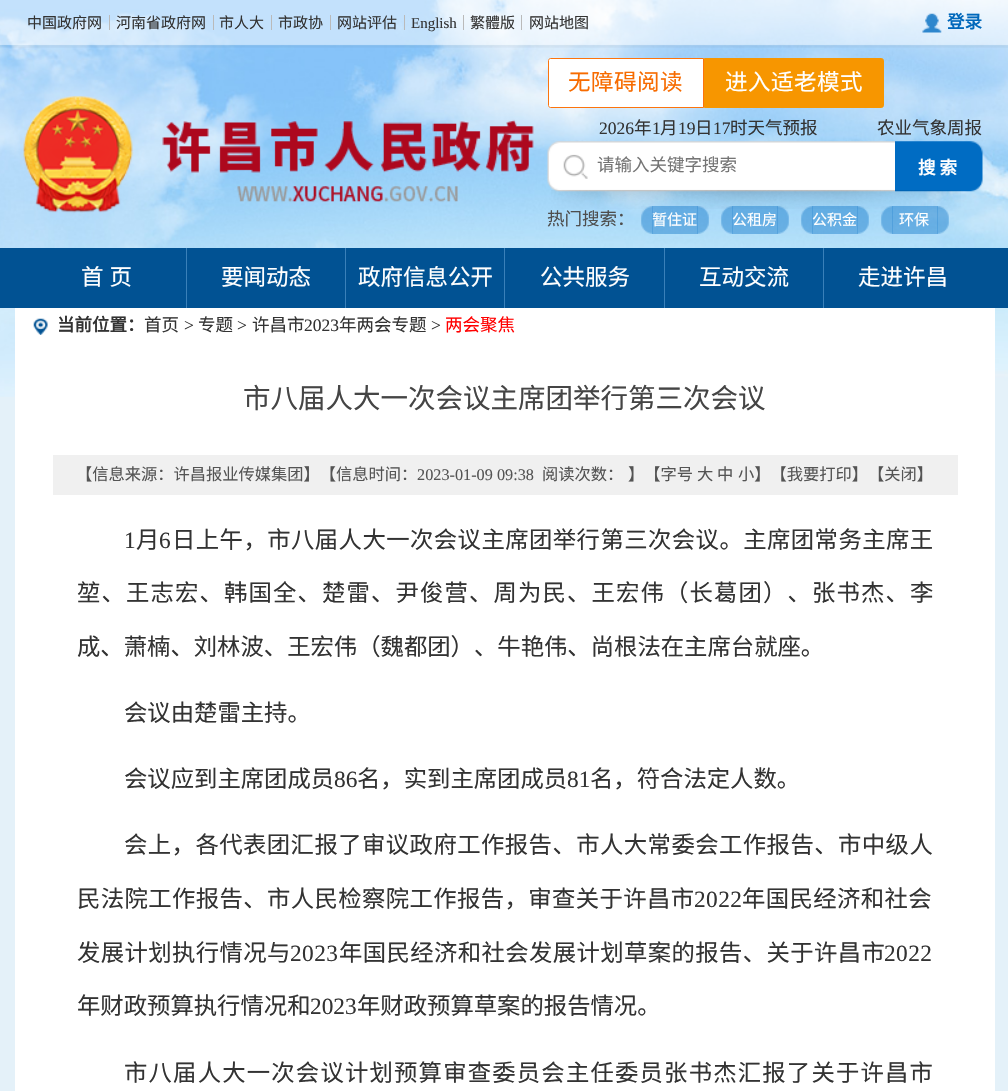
#include "include/core/SkBlurTypes.h"
#include "include/core/SkCanvas.h"
#include "include/core/SkData.h"
#include "include/core/SkFont.h"
#include "include/core/SkFontMgr.h"
#include "include/core/SkImage.h"
#include "include/core/SkMaskFilter.h"
#include "include/core/SkPaint.h"
#include "include/core/SkPathBuilder.h"
#include "include/core/SkTextBlob.h"
#include "include/effects/SkDashPathEffect.h"
#include "include/effects/SkGradientShader.h"
#include "include/utils/SkParsePath.h"

extern sk_sp<SkFontMgr> fontMgr;

void draw(SkCanvas* canvas) {
    SkPaint p;
    p.setAntiAlias(true);
    auto font = [&](const char* family, int weight, float size, bool italic = false) {
        SkFontStyle style(weight, SkFontStyle::kNormal_Width,
            italic ? SkFontStyle::kItalic_Slant : SkFontStyle::kUpright_Slant);
        SkFont result(fontMgr->matchFamilyStyle(family, style), size);
        result.setSubpixel(true);
        return result;
    };
    auto drawTracked = [&](const char* s, float x, float y, const SkFont& font, const SkPaint& ink, float letter, float word) {
        std::vector<SkGlyphID> glyphs(font.countText(s, strlen(s), SkTextEncoding::kUTF8));
        std::vector<float> xs(glyphs.size());
        font.textToGlyphs(s, strlen(s), SkTextEncoding::kUTF8, glyphs);
        font.getXPos(glyphs, xs, x);
        float extra = 0;
        for (size_t i = 0; i < glyphs.size(); i++) {
            xs[i] += extra;
            extra += letter + word * (glyphs[i] == font.unicharToGlyph(' '));
        }
        canvas->drawTextBlob(SkTextBlob::MakeFromPosHGlyphs(glyphs, xs, y, font), 0, 0, ink);
    };
    auto drawPhoto = [&](const char* path, float l, float t, float r, float b) {
        auto image = SkImages::DeferredFromEncodedData(SkData::MakeFromFileName(path));
        canvas->drawImageRect(image, SkRect::MakeLTRB(l, t, r, b), SkSamplingOptions());
    };
    canvas->clear(0xFFE4F1F9);
    drawPhoto("media/1.png", 0, 0, 1008, 397);
    drawPhoto("media/2.png", 0, 0, 1008, 48);
    auto font1 = font("Noto Sans CJK SC", 400, 15);
    p.setColor(0xFF333333);
    canvas->drawString("中国政府网", 27, 28, font1, p);
    p.setColor(0xFFBABABA);
    canvas->drawRect(SkRect::MakeLTRB(109, 15, 110, 30), p);
    p.setColor(0xFF333333);
    canvas->drawString("河南省政府网", 116, 28, font1, p);
    p.setColor(0xFFBABABA);
    canvas->drawRect(SkRect::MakeLTRB(213, 15, 214, 30), p);
    p.setColor(0xFF333333);
    canvas->drawString("市人大", 219, 28, font1, p);
    p.setColor(0xFFBABABA);
    canvas->drawRect(SkRect::MakeLTRB(271, 15, 272, 30), p);
    p.setColor(0xFF333333);
    canvas->drawString("市政协", 278, 28, font1, p);
    p.setColor(0xFFBABABA);
    canvas->drawRect(SkRect::MakeLTRB(330, 15, 331, 30), p);
    p.setColor(0xFF333333);
    canvas->drawString("网站评估", 337, 28, font1, p);
    p.setColor(0xFFBABABA);
    canvas->drawRect(SkRect::MakeLTRB(404, 15, 405, 30), p);
    auto font2 = font("Liberation Serif", 400, 15);
    p.setColor(0xFF333333);
    canvas->drawString("English", 411, 28, font2, p);
    p.setColor(0xFFBABABA);
    canvas->drawRect(SkRect::MakeLTRB(463, 15, 464, 30), p);
    p.setColor(0xFF333333);
    canvas->drawString("繁體版", 470, 28, font1, p);
    p.setColor(0xFFBABABA);
    canvas->drawRect(SkRect::MakeLTRB(521, 15, 522, 30), p);
    p.setColor(0xFF333333);
    canvas->drawString("网站地图", 529, 28, font1, p);
    drawPhoto("media/3.png", 922, 13, 942, 33);
    auto font3 = font("Noto Sans CJK SC", 700, 17.5f);
    p.setColor(0xFF0068BB);
    canvas->drawString("登录", 947, 28, font3, p);
    drawPhoto("media/4.png", 23, 96, 534, 213);
    p.setColor(0xFFFFFFFF);
    canvas->drawPath(SkPathBuilder().moveTo(550.5f, 58.5f).lineTo(703.5f, 58.5f).lineTo(703.5f, 107.5f).lineTo(550.5f, 107.5f).cubicTo(549.5f, 107.5f, 548.5f, 106.5f, 548.5f, 105.5f).lineTo(548.5f, 60.5f).cubicTo(548.5f, 59.5f, 549.5f, 58.5f, 550.5f, 58.5f).close().detach(), p);
    p.setStyle(SkPaint::kStroke_Style);
    p.setStrokeWidth(1);
    p.setColor(0xFFFC740D);
    canvas->drawPath(SkPathBuilder().moveTo(550.5f, 58.5f).lineTo(703.5f, 58.5f).lineTo(703.5f, 107.5f).lineTo(550.5f, 107.5f).cubicTo(549.5f, 107.5f, 548.5f, 106.5f, 548.5f, 105.5f).lineTo(548.5f, 60.5f).cubicTo(548.5f, 59.5f, 549.5f, 58.5f, 550.5f, 58.5f).close().detach(), p);
    auto font4 = font("Noto Sans CJK SC", 400, 22.5f);
    p.setStyle(SkPaint::kFill_Style);
    p.setColor(0xFFF76B00);
    drawTracked("无障碍阅读", 568, 90, font4, p, 0.5f, 0);
    p.setColor(0xFFF79600);
    canvas->drawPath(SkPathBuilder().moveTo(704.5f, 58.5f).lineTo(881.5f, 58.5f).cubicTo(882.5f, 58.5f, 883.5f, 59.5f, 883.5f, 60.5f).lineTo(883.5f, 105.5f).cubicTo(883.5f, 106.5f, 882.5f, 107.5f, 881.5f, 107.5f).lineTo(704.5f, 107.5f).close().detach(), p);
    p.setStyle(SkPaint::kStroke_Style);
    canvas->drawPath(SkPathBuilder().moveTo(704.5f, 58.5f).lineTo(881.5f, 58.5f).cubicTo(882.5f, 58.5f, 883.5f, 59.5f, 883.5f, 60.5f).lineTo(883.5f, 105.5f).cubicTo(883.5f, 106.5f, 882.5f, 107.5f, 881.5f, 107.5f).lineTo(704.5f, 107.5f).close().detach(), p);
    p.setStyle(SkPaint::kFill_Style);
    p.setColor(0xFFFFFFFF);
    drawTracked("进入适老模式", 725, 90, font4, p, 0.5f, 0);
    auto font5 = font("Liberation Serif", 400, 17.5f);
    p.setColor(0xFF333333);
    canvas->drawString("2026", 599, 134, font5, p);
    auto font6 = font("Noto Sans CJK SC", 400, 17.5f);
    canvas->drawString("年", 634, 134, font6, p);
    canvas->drawString("1", 652, 134, font5, p);
    canvas->drawString("月", 660, 134, font6, p);
    canvas->drawString("19", 678, 134, font5, p);
    canvas->drawString("日", 695, 134, font6, p);
    canvas->drawString("17", 713, 134, font5, p);
    canvas->drawString("时天气预报", 730, 134, font6, p);
    canvas->drawString("农业气象周报", 877, 134, font6, p);
    drawPhoto("media/5.png", 547, 141, 895, 192);
    p.setColor(0xFF757575);
    canvas->drawString("请输入关键字搜索", 597, 171, font6, p);
    drawPhoto("media/6.png", 895, 141, 983, 192);
    p.setColor(0xFFFFFFFF);
    canvas->drawString("搜 索", 918, 174, font3, p);
    drawPhoto("media/7.png", 551, 190, 961, 209);
    p.setColor(0xFF4E4E4E);
    canvas->drawString("热门搜索：", 547, 225, font6, p);
    p.setColor(0x66006BC3);
    canvas->drawRect(SkRect::MakeLTRB(652, 206, 698, 234), p);
    p.setColor(0xFFFFFFFF);
    canvas->drawString("暂住证", 652, 225, font1, p);
    drawPhoto("media/8.png", 641, 206, 653, 234);
    drawPhoto("media/9.png", 697, 206, 709, 234);
    p.setColor(0x66006BC3);
    canvas->drawRect(SkRect::MakeLTRB(732, 206, 778, 234), p);
    p.setColor(0xFFFFFFFF);
    canvas->drawString("公租房", 732, 225, font1, p);
    drawPhoto("media/10.png", 721, 206, 733, 234);
    drawPhoto("media/11.png", 777, 206, 789, 234);
    p.setColor(0x66006BC3);
    canvas->drawRect(SkRect::MakeLTRB(812, 206, 858, 234), p);
    p.setColor(0xFFFFFFFF);
    canvas->drawString("公积金", 812, 225, font1, p);
    drawPhoto("media/12.png", 801, 206, 813, 234);
    drawPhoto("media/13.png", 857, 206, 869, 234);
    p.setColor(0x66006BC3);
    canvas->drawRect(SkRect::MakeLTRB(892, 206, 938, 234), p);
    drawPhoto("media/14.png", 881, 206, 893, 234);
    p.setColor(0xFFFFFFFF);
    canvas->drawString("环保", 899, 225, font1, p);
    drawPhoto("media/15.png", 937, 206, 949, 234);
    p.setColor(0xFF015293);
    canvas->drawRect(SkRect::MakeLTRB(0, 248, 1008, 308), p);
    p.setColor(0xFFFFFFFF);
    drawTracked("首 页", 81, 285, font4, p, 0, 1);
    p.setColor(0xFF3A80B9);
    canvas->drawRect(SkRect::MakeLTRB(186, 248, 187, 308), p);
    p.setColor(0xFFFFFFFF);
    canvas->drawString("要闻动态", 221, 285, font4, p);
    p.setColor(0xFF3A80B9);
    canvas->drawRect(SkRect::MakeLTRB(345, 248, 346, 308), p);
    p.setColor(0xFFFFFFFF);
    canvas->drawString("政府信息公开", 358, 285, font4, p);
    p.setColor(0xFF3A80B9);
    canvas->drawRect(SkRect::MakeLTRB(504, 248, 505, 308), p);
    p.setColor(0xFFFFFFFF);
    canvas->drawString("公共服务", 540, 285, font4, p);
    p.setColor(0xFF3A80B9);
    canvas->drawRect(SkRect::MakeLTRB(664, 248, 665, 308), p);
    p.setColor(0xFFFFFFFF);
    canvas->drawString("互动交流", 699, 285, font4, p);
    p.setColor(0xFF3A80B9);
    canvas->drawRect(SkRect::MakeLTRB(823, 248, 824, 308), p);
    p.setColor(0xFFFFFFFF);
    canvas->drawString("走进许昌", 858, 285, font4, p);
    canvas->drawRect(SkRect::MakeLTRB(15, 308, 995, 1091), p);
    drawPhoto("media/16.png", 33, 318, 48, 335);
    p.setColor(0xFF333333);
    canvas->drawString("当前位置：", 57, 331, font3, p);
    canvas->drawString("首页", 144, 331, font6, p);
    canvas->drawString(">", 184, 331, font5, p);
    canvas->drawString("专题", 198, 331, font6, p);
    canvas->drawString(">", 237, 331, font5, p);
    canvas->drawString("许昌市", 252, 331, font6, p);
    canvas->drawString("2023", 304, 331, font5, p);
    canvas->drawString("年两会专题", 339, 331, font6, p);
    canvas->drawString(">", 431, 331, font5, p);
    p.setColor(0xFFFF0000);
    canvas->drawString("两会聚焦", 445, 331, font6, p);
    auto font7 = font("Noto Sans CJK SC", 400, 27.5f);
    p.setColor(0xFF454545);
    canvas->drawString("市八届人大一次会议主席团举行第三次会议", 243, 408, font7, p);
    p.setColor(0xFFF0F0F0);
    canvas->drawRect(SkRect::MakeLTRB(53, 455, 958, 495), p);
    auto font8 = font("Noto Sans CJK SC", 400, 16.25f);
    p.setColor(0xFF545454);
    canvas->drawString("【信息来源：许昌报业传媒集团】【信息时间：", 76, 480, font8, p);
    auto font9 = font("Liberation Serif", 400, 16.25f);
    canvas->drawString("2023-01-09 09:38", 417, 480, font9, p);
    {
        const struct { const char* s; float x, y; } items[] = {
            {"阅读次数：", 542, 480},
            {"】【字号", 628, 480},
            {"大", 697, 480},
            {"中", 717, 480},
            {"小】【我要打印】【关闭】", 738, 480},
        };
        for (auto [s, x, y] : items) {
            canvas->drawString(s, x, y, font8, p);
        }
    }
    auto font10 = font("Liberation Serif", 400, 23.35f);
    p.setColor(0xFF333333);
    drawTracked("1", 124, 548, font10, p, 0.45f, 0);
    auto font11 = font("Noto Sans CJK SC", 400, 23.35f);
    drawTracked("月", 136, 548, font11, p, 0.45f, 0);
    drawTracked("6", 159, 548, font10, p, 0.45f, 0);
    drawTracked("日上午，市八届人大一次会议主席团举行第三次会议。主席团常务主席王", 172, 548, font11, p, 0.45f, 0);
    drawTracked("堃、王志宏、韩国全、楚雷、尹俊营、周为民、王宏伟（长葛团）、张书杰、李", 77, 601, font11, p, 1.15f, 0);
    {
        const struct { const char* s; float x, y; } items[] = {
            {"成、萧楠、刘林波、王宏伟（魏都团）、牛艳伟、尚根法在主席台就座。", 77, 655},
            {"会议由楚雷主持。", 124, 721},
            {"会议应到主席团成员", 124, 787},
        };
        for (auto [s, x, y] : items) {
            canvas->drawString(s, x, y, font11, p);
        }
    }
    canvas->drawString("86", 334, 787, font10, p);
    canvas->drawString("名，实到主席团成员", 357, 787, font11, p);
    canvas->drawString("81", 567, 787, font10, p);
    canvas->drawString("名，符合法定人数。", 590, 787, font11, p);
    drawTracked("会上，各代表团汇报了审议政府工作报告、市人大常委会工作报告、市中级人", 124, 853, font11, p, 0.45f, 0);
    drawTracked("民法院工作报告、市人民检察院工作报告，审查关于许昌市", 77, 907, font11, p, 0.4f, 0);
    drawTracked("2022", 694, 907, font10, p, 0.4f, 0);
    drawTracked("年国民经济和社会", 742, 907, font11, p, 0.4f, 0);
    drawTracked("发展计划执行情况与", 77, 961, font11, p, 0.4f, 0);
    drawTracked("2023", 290, 961, font10, p, 0.4f, 0);
    drawTracked("年国民经济和社会发展计划草案的报告、关于许昌市", 339, 961, font11, p, 0.4f, 0);
    drawTracked("2022", 884, 961, font10, p, 0.4f, 0);
    canvas->drawString("年财政预算执行情况和", 77, 1014, font11, p);
    canvas->drawString("2023", 310, 1014, font10, p);
    canvas->drawString("年财政预算草案的报告情况。", 357, 1014, font11, p);
    drawTracked("市八届人大一次会议计划预算审查委员会主任委员张书杰汇报了关于许昌市", 124, 1081, font11, p, 1.2f, 0);
}
